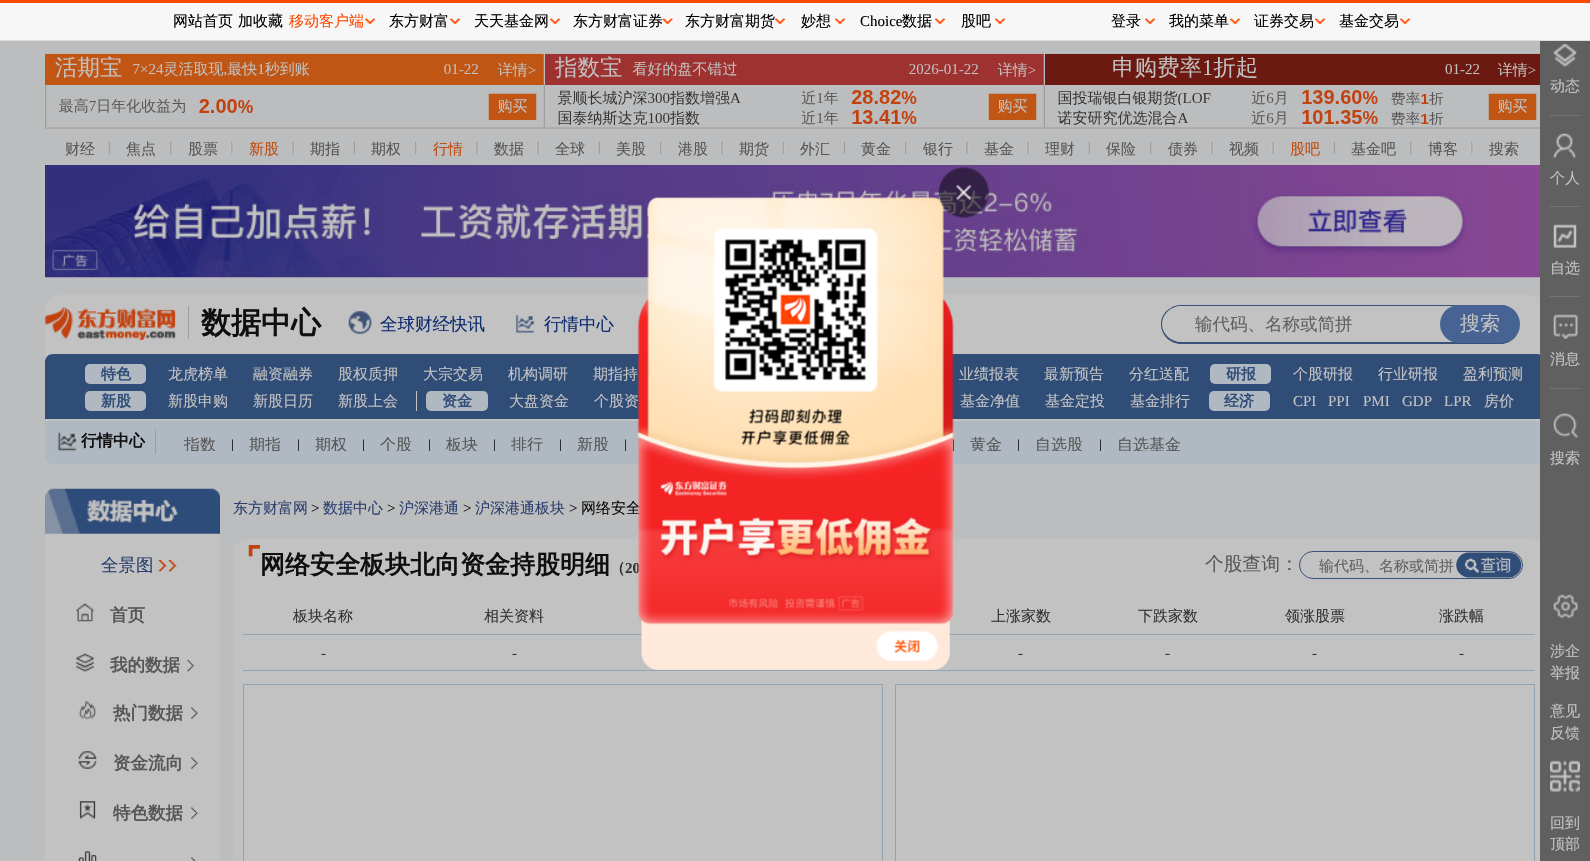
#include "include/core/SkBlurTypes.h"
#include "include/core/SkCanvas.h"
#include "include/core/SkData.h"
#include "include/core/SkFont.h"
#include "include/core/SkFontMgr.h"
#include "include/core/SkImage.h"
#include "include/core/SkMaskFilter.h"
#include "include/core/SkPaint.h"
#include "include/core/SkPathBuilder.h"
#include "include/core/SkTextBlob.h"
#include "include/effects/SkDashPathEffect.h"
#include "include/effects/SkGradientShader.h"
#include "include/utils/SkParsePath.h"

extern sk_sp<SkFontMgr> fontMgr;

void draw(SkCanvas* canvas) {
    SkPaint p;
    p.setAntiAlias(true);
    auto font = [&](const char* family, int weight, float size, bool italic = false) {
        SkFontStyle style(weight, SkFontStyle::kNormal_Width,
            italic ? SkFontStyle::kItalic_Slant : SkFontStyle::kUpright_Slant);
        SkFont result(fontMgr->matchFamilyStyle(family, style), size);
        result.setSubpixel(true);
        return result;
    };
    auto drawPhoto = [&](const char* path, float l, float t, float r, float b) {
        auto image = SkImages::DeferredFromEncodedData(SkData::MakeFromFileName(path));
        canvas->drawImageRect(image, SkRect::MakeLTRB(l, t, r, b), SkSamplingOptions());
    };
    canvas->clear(0xFFBCBDBE);
    {
        const struct { float l, t, r, b; SkColor color; } items[] = {
            {0, 3, 1590, 40, 0xFFF7F7F7},
            {0, 0, 1590, 3, 0xFFFF4901},
            {0, 40, 1590, 41, 0xFFDFDFDF},
        };
        for (auto [l, t, r, b, color] : items) {
            p.setColor(color);
            canvas->drawRect(SkRect::MakeLTRB(l, t, r, b), p);
        }
    }
    auto font1 = font("WenQuanYi Zen Hei", 500, 15);
    p.setColor(0xFF000000);
    canvas->drawString("网站首页", 173, 26, font1, p);
    canvas->drawString("加收藏", 238, 26, font1, p);
    drawPhoto("media/1.png", 365, 18, 376, 24);
    p.setColor(0xFFFF4900);
    canvas->drawString("移动客户端", 289, 26, font1, p);
    drawPhoto("media/1.png", 450, 18, 461, 24);
    p.setColor(0xFF000000);
    canvas->drawString("东方财富", 389, 26, font1, p);
    drawPhoto("media/1.png", 550, 18, 561, 24);
    canvas->drawString("天天基金网", 474, 26, font1, p);
    drawPhoto("media/2.png", 662, 18, 673, 24);
    canvas->drawString("东方财富证券", 573, 26, font1, p);
    drawPhoto("media/1.png", 775, 18, 786, 24);
    canvas->drawString("东方财富期货", 685, 26, font1, p);
    drawPhoto("media/1.png", 835, 18, 846, 24);
    canvas->drawString("妙想", 801, 26, font1, p);
    drawPhoto("media/1.png", 935, 18, 946, 24);
    auto font2 = font("Liberation Serif", 400, 15);
    canvas->drawString("Choice", 860, 26, font2, p);
    canvas->drawString("数据", 902, 26, font1, p);
    drawPhoto("media/1.png", 995, 18, 1006, 24);
    canvas->drawString("股吧", 961, 26, font1, p);
    drawPhoto("media/1.png", 1145, 18, 1156, 24);
    canvas->drawString("登录", 1111, 26, font1, p);
    drawPhoto("media/3.png", 1230, 18, 1241, 24);
    canvas->drawString("我的菜单", 1169, 26, font1, p);
    drawPhoto("media/3.png", 1315, 18, 1326, 24);
    canvas->drawString("证券交易", 1254, 26, font1, p);
    drawPhoto("media/1.png", 1400, 18, 1411, 24);
    canvas->drawString("基金交易", 1339, 26, font1, p);
    drawPhoto("media/4.png", 45, 53, 1540, 129);
    p.setColor(0xFF575757);
    canvas->drawString("财经", 65, 154, font1, p);
    drawPhoto("media/5.png", 107, 140, 111, 154);
    canvas->drawString("焦点", 126, 154, font1, p);
    drawPhoto("media/6.png", 169, 140, 173, 154);
    canvas->drawString("股票", 188, 154, font1, p);
    drawPhoto("media/7.png", 230, 140, 234, 154);
    p.setColor(0xFFC24B0F);
    canvas->drawString("新股", 249, 154, font1, p);
    drawPhoto("media/8.png", 291, 140, 295, 154);
    p.setColor(0xFF575757);
    canvas->drawString("期指", 310, 154, font1, p);
    drawPhoto("media/5.png", 352, 140, 356, 154);
    canvas->drawString("期权", 371, 154, font1, p);
    drawPhoto("media/6.png", 414, 140, 418, 154);
    p.setColor(0xFFC24B0F);
    canvas->drawString("行情", 433, 154, font1, p);
    drawPhoto("media/9.png", 475, 140, 479, 154);
    p.setColor(0xFF575757);
    canvas->drawString("数据", 494, 154, font1, p);
    drawPhoto("media/8.png", 536, 140, 540, 154);
    canvas->drawString("全球", 555, 154, font1, p);
    drawPhoto("media/5.png", 597, 140, 601, 154);
    canvas->drawString("美股", 616, 154, font1, p);
    drawPhoto("media/6.png", 659, 140, 663, 154);
    canvas->drawString("港股", 678, 154, font1, p);
    drawPhoto("media/9.png", 720, 140, 724, 154);
    canvas->drawString("期货", 739, 154, font1, p);
    drawPhoto("media/10.png", 781, 140, 785, 154);
    canvas->drawString("外汇", 800, 154, font1, p);
    drawPhoto("media/5.png", 842, 140, 846, 154);
    canvas->drawString("黄金", 861, 154, font1, p);
    drawPhoto("media/6.png", 904, 140, 908, 154);
    canvas->drawString("银行", 923, 154, font1, p);
    drawPhoto("media/9.png", 965, 140, 969, 154);
    canvas->drawString("基金", 984, 154, font1, p);
    drawPhoto("media/8.png", 1026, 140, 1030, 154);
    canvas->drawString("理财", 1045, 154, font1, p);
    drawPhoto("media/5.png", 1087, 140, 1091, 154);
    canvas->drawString("保险", 1106, 154, font1, p);
    drawPhoto("media/6.png", 1149, 140, 1153, 154);
    canvas->drawString("债券", 1168, 154, font1, p);
    drawPhoto("media/7.png", 1210, 140, 1214, 154);
    canvas->drawString("视频", 1229, 154, font1, p);
    drawPhoto("media/8.png", 1271, 140, 1275, 154);
    p.setColor(0xFFC24B0F);
    canvas->drawString("股吧", 1290, 154, font1, p);
    drawPhoto("media/5.png", 1332, 140, 1336, 154);
    p.setColor(0xFF575757);
    canvas->drawString("基金吧", 1351, 154, font1, p);
    drawPhoto("media/6.png", 1409, 140, 1413, 154);
    canvas->drawString("博客", 1428, 154, font1, p);
    drawPhoto("media/7.png", 1470, 140, 1474, 154);
    canvas->drawString("搜索", 1489, 154, font1, p);
    drawPhoto("media/11.png", 45, 165, 1540, 278);
    p.setColor(0xFFC2C2C2);
    canvas->drawRoundRect(SkRect::MakeLTRB(45, 295, 1545, 464), 15, 15, p);
    drawPhoto("media/12.png", 45, 307, 176, 340);
    auto font3 = font("WenQuanYi Zen Hei", 700, 30);
    p.setColor(0xFF0F0F0F);
    canvas->drawString("数据中心", 201, 333, font3, p);
    p.setColor(0xFF9E9E9E);
    canvas->drawRect(SkRect::MakeLTRB(188, 306, 189, 339), p);
    drawPhoto("media/13.png", 348, 311, 372, 334);
    auto font4 = font("WenQuanYi Zen Hei", 500, 17.5f);
    p.setColor(0xFF0F2C73);
    canvas->drawString("全球财经快讯", 380, 330, font4, p);
    drawPhoto("media/14.png", 516, 314, 534, 333);
    canvas->drawString("行情中心", 544, 330, font4, p);
    p.setColor(0xFF385178);
    canvas->drawPath(SkPathBuilder(SkPathFillType::kEvenOdd).moveTo(1181, 305).lineTo(1501, 305).cubicTo(1511, 305, 1520, 314, 1520, 324).cubicTo(1520, 335, 1511, 344, 1501, 344).lineTo(1181, 344).cubicTo(1170, 344, 1161, 335, 1161, 324).cubicTo(1161, 314, 1170, 305, 1181, 305).close().moveTo(1181, 306).lineTo(1501, 306).cubicTo(1511, 306, 1520, 314, 1520, 324).cubicTo(1520, 334, 1511, 342, 1501, 342).lineTo(1181, 342).cubicTo(1171, 342, 1162, 334, 1162, 324).cubicTo(1162, 314, 1171, 306, 1181, 306).close().detach(), p);
    p.setColor(0xFFC2C2C2);
    canvas->drawRect(SkRect::MakeLTRB(1178, 306, 1181, 307), p);
    p.setColor(0xFF616161);
    canvas->drawString("输代码、名称或简拼", 1195, 330, font4, p);
    p.setColor(0xFF476394);
    canvas->drawRoundRect(SkRect::MakeLTRB(1440, 305, 1520, 343), 19, 19, p);
    auto font5 = font("WenQuanYi Zen Hei", 500, 20);
    p.setColor(0xFFC2C2C2);
    canvas->drawString("搜索", 1460, 330, font5, p);
    p.setColor(0xFF304D78);
    canvas->drawPath(SkPathBuilder().moveTo(53, 354).lineTo(1537, 354).cubicTo(1541.5f, 354, 1545, 357.5f, 1545, 362).lineTo(1545, 419).lineTo(45, 419).lineTo(45, 362).cubicTo(45, 357.5f, 48.5f, 354, 53, 354).close().detach(), p);
    p.setColor(0xFFB0B9C2);
    canvas->drawRoundRect(SkRect::MakeLTRB(85, 364, 146, 384), 5, 5, p);
    auto font6 = font("WenQuanYi Zen Hei", 700, 15);
    p.setColor(0xFF304D78);
    canvas->drawString("特色", 101, 379, font6, p);
    p.setColor(0xFFC2C2C2);
    {
        const struct { const char* s; float x, y; } items[] = {
            {"龙虎榜单", 168, 379},
            {"融资融券", 253, 379},
            {"股权质押", 338, 379},
            {"大宗交易", 423, 379},
            {"机构调研", 508, 379},
            {"期指持", 593, 379},
            {"业绩报表", 959, 379},
            {"最新预告", 1044, 379},
            {"分红送配", 1129, 379},
        };
        for (auto [s, x, y] : items) {
            canvas->drawString(s, x, y, font1, p);
        }
    }
    p.setColor(0xFFB0B9C2);
    canvas->drawRoundRect(SkRect::MakeLTRB(1210, 364, 1271, 384), 5, 5, p);
    p.setColor(0xFF304D78);
    canvas->drawString("研报", 1226, 379, font6, p);
    p.setColor(0xFFC2C2C2);
    {
        const struct { const char* s; float x, y; } items[] = {
            {"个股研报", 1293, 379},
            {"行业研报", 1378, 379},
            {"盈利预测", 1463, 379},
        };
        for (auto [s, x, y] : items) {
            canvas->drawString(s, x, y, font1, p);
        }
    }
    p.setColor(0xFFB0B9C2);
    canvas->drawRoundRect(SkRect::MakeLTRB(85, 391, 146, 411), 5, 5, p);
    p.setColor(0xFF304D78);
    canvas->drawString("新股", 101, 406, font6, p);
    p.setColor(0xFFC2C2C2);
    {
        const struct { const char* s; float x, y; } items[] = {
            {"新股申购", 168, 406},
            {"新股日历", 253, 406},
            {"新股上会", 338, 406},
        };
        for (auto [s, x, y] : items) {
            canvas->drawString(s, x, y, font1, p);
        }
    }
    canvas->drawRect(SkRect::MakeLTRB(416, 391, 417, 411), p);
    p.setColor(0xFFB0B9C2);
    canvas->drawRoundRect(SkRect::MakeLTRB(426, 391, 488, 411), 5, 5, p);
    p.setColor(0xFF304D78);
    canvas->drawString("资金", 442, 406, font6, p);
    p.setColor(0xFFC2C2C2);
    {
        const struct { const char* s; float x, y; } items[] = {
            {"大盘资金", 509, 406},
            {"个股资", 594, 406},
            {"基金净值", 960, 406},
            {"基金定投", 1045, 406},
            {"基金排行", 1130, 406},
        };
        for (auto [s, x, y] : items) {
            canvas->drawString(s, x, y, font1, p);
        }
    }
    p.setColor(0xFFB0B9C2);
    canvas->drawRoundRect(SkRect::MakeLTRB(1209, 391, 1270, 411), 5, 5, p);
    p.setColor(0xFF304D78);
    canvas->drawString("经济", 1224, 406, font6, p);
    p.setColor(0xFFC2C2C2);
    {
        const struct { const char* s; float x, y; } items[] = {
            {"CPI", 1293, 406},
            {"PPI", 1328, 406},
            {"PMI", 1363, 406},
            {"GDP", 1402, 406},
            {"LPR", 1444, 406},
        };
        for (auto [s, x, y] : items) {
            canvas->drawString(s, x, y, font2, p);
        }
    }
    canvas->drawString("房价", 1484, 406, font1, p);
    p.setColor(0xFFB0B9C2);
    canvas->drawPath(SkPathBuilder().moveTo(45.5f, 421.5f).lineTo(1547.5f, 421.5f).lineTo(1547.5f, 456).cubicTo(1547.5f, 460, 1544, 463.5f, 1540, 463.5f).lineTo(53, 463.5f).cubicTo(49, 463.5f, 45.5f, 460, 45.5f, 456).close().detach(), p);
    p.setStyle(SkPaint::kStroke_Style);
    p.setStrokeWidth(1);
    canvas->drawPath(SkPathBuilder().moveTo(45.5f, 421.5f).lineTo(1547.5f, 421.5f).lineTo(1547.5f, 456).cubicTo(1547.5f, 460, 1544, 463.5f, 1540, 463.5f).lineTo(53, 463.5f).cubicTo(49, 463.5f, 45.5f, 460, 45.5f, 456).close().detach(), p);
    p.setStyle(SkPaint::kFill_Style);
    p.setColor(0xFF9E9E9E);
    canvas->drawRect(SkRect::MakeLTRB(155, 429, 156, 454), p);
    drawPhoto("media/15.png", 56, 432, 78, 452);
    auto font7 = font("WenQuanYi Zen Hei", 700, 16);
    p.setColor(0xFF0F0F0F);
    canvas->drawString("行情中心", 81, 446, font7, p);
    canvas->save();
    canvas->clipRect(SkRect::MakeLTRB(169, 434, 1198, 451));
    auto font8 = font("WenQuanYi Zen Hei", 500, 16);
    p.setColor(0xFF575757);
    canvas->drawString("指数", 184, 450, font8, p);
    p.setColor(0xFF0F0F0F);
    canvas->drawString("|", 231, 450, font2, p);
    p.setColor(0xFF575757);
    canvas->drawString("期指", 249, 450, font8, p);
    p.setColor(0xFF0F0F0F);
    canvas->drawString("|", 297, 450, font2, p);
    p.setColor(0xFF575757);
    canvas->drawString("期权", 315, 450, font8, p);
    p.setColor(0xFF0F0F0F);
    canvas->drawString("|", 362, 450, font2, p);
    p.setColor(0xFF575757);
    canvas->drawString("个股", 380, 450, font8, p);
    p.setColor(0xFF0F0F0F);
    canvas->drawString("|", 428, 450, font2, p);
    p.setColor(0xFF575757);
    canvas->drawString("板块", 446, 450, font8, p);
    p.setColor(0xFF0F0F0F);
    canvas->drawString("|", 493, 450, font2, p);
    p.setColor(0xFF575757);
    canvas->drawString("排行", 511, 450, font8, p);
    p.setColor(0xFF0F0F0F);
    canvas->drawString("|", 559, 450, font2, p);
    p.setColor(0xFF575757);
    canvas->drawString("新股", 577, 450, font8, p);
    p.setColor(0xFF0F0F0F);
    canvas->drawString("|", 624, 450, font2, p);
    canvas->drawString("|", 952, 450, font2, p);
    p.setColor(0xFF575757);
    canvas->drawString("黄金", 970, 450, font8, p);
    p.setColor(0xFF0F0F0F);
    canvas->drawString("|", 1017, 450, font2, p);
    p.setColor(0xFF575757);
    canvas->drawString("自选股", 1035, 450, font8, p);
    p.setColor(0xFF0F0F0F);
    canvas->drawString("|", 1099, 450, font2, p);
    p.setColor(0xFF575757);
    canvas->drawString("自选基金", 1117, 450, font8, p);
    canvas->restore();
    p.setColor(0xFFC2C2C2);
    canvas->drawRect(SkRect::MakeLTRB(45, 489, 220, 861), p);
    drawPhoto("media/16.png", 45, 488, 220, 534);
    p.setColor(0xFF2C406E);
    canvas->drawString("全景图", 101, 571, font4, p);
    drawPhoto("media/17.png", 158, 560, 177, 572);
    drawPhoto("media/18.png", 76, 603, 94, 622);
    auto font9 = font("WenQuanYi Zen Hei", 700, 17.5f);
    p.setColor(0xFF575757);
    canvas->drawString("首页", 110, 621, font9, p);
    drawPhoto("media/19.png", 76, 653, 94, 672);
    canvas->drawString("我的数据", 110, 671, font9, p);
    drawPhoto("media/20.png", 187, 659, 194, 672);
    drawPhoto("media/21.png", 78, 701, 97, 719);
    canvas->drawString("热门数据", 113, 719, font9, p);
    drawPhoto("media/22.png", 191, 707, 198, 719);
    drawPhoto("media/23.png", 78, 751, 97, 769);
    canvas->drawString("资金流向", 113, 769, font9, p);
    drawPhoto("media/22.png", 191, 757, 198, 769);
    drawPhoto("media/24.png", 79, 801, 96, 819);
    canvas->drawString("特色数据", 113, 819, font9, p);
    drawPhoto("media/22.png", 191, 807, 198, 819);
    drawPhoto("media/25.png", 78, 851, 97, 861);
    drawPhoto("media/26.png", 191, 857, 196, 861);
    p.setColor(0xFF2C406E);
    canvas->drawString("东方财富网", 233, 513, font1, p);
    p.setColor(0xFF0F0F0F);
    canvas->drawString(">", 311, 513, font2, p);
    p.setColor(0xFF2C406E);
    canvas->drawString("数据中心", 323, 513, font1, p);
    p.setColor(0xFF0F0F0F);
    canvas->drawString(">", 387, 513, font2, p);
    p.setColor(0xFF2C406E);
    canvas->drawString("沪深港通", 399, 513, font1, p);
    p.setColor(0xFF0F0F0F);
    canvas->drawString(">", 463, 513, font2, p);
    p.setColor(0xFF2C406E);
    canvas->drawString("沪深港通板块", 475, 513, font1, p);
    p.setColor(0xFF0F0F0F);
    canvas->drawString(">", 569, 513, font2, p);
    canvas->drawString("网络安全", 581, 513, font1, p);
    p.setColor(0xFFC2C2C2);
    canvas->drawRoundRect(SkRect::MakeLTRB(233, 539, 1545, 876), 15, 15, p);
    canvas->drawRect(SkRect::MakeLTRB(243, 539, 1535, 540), p);
    drawPhoto("media/27.png", 248, 545, 260, 557);
    auto font10 = font("WenQuanYi Zen Hei", 700, 25);
    p.setColor(0xFF0F0F0F);
    canvas->drawString("网络安全板块北向资金持股明细", 260, 573, font10, p);
    p.setColor(0xFF333333);
    canvas->drawString("（", 610, 573, font6, p);
    auto font11 = font("Liberation Serif", 700, 15);
    canvas->drawString("20", 625, 573, font11, p);
    auto font12 = font("WenQuanYi Zen Hei", 500, 18.75f);
    p.setColor(0xFF575757);
    canvas->drawString("个股查询：", 1205, 570, font12, p);
    p.setStyle(SkPaint::kStroke_Style);
    p.setColor(0xFF385178);
    canvas->drawRoundRect(SkRect::MakeLTRB(1299.5f, 551.5f, 1522.5f, 578.5f), 13.5f, 13.5f, p);
    p.setStyle(SkPaint::kFill_Style);
    p.setColor(0xFF616161);
    canvas->drawString("输代码、名称或简拼", 1319, 571, font1, p);
    drawPhoto("media/28.png", 1456, 552, 1522, 578);
    p.setColor(0xFF92A4B2);
    canvas->drawRect(SkRect::MakeLTRB(243, 634, 1535, 635), p);
    p.setColor(0xFF333333);
    {
        const struct { const char* s; float x, y; } items[] = {
            {"板块名称", 293, 621},
            {"相关资料", 484, 621},
            {"上涨家数", 991, 621},
            {"下跌家数", 1138, 621},
            {"领涨股票", 1285, 621},
            {"涨跌幅", 1439, 621},
        };
        for (auto [s, x, y] : items) {
            canvas->drawString(s, x, y, font1, p);
        }
    }
    p.setColor(0xFF92A4B2);
    canvas->drawRect(SkRect::MakeLTRB(243, 670, 1535, 671), p);
    p.setColor(0xFF333333);
    {
        const struct { const char* s; float x, y; } items[] = {
            {"-", 321, 658},
            {"-", 512, 658},
            {"-", 1018, 658},
            {"-", 1165, 658},
            {"-", 1312, 658},
            {"-", 1459, 658},
        };
        for (auto [s, x, y] : items) {
            canvas->drawString(s, x, y, font2, p);
        }
    }
    p.setStyle(SkPaint::kStroke_Style);
    p.setColor(0xFF92A4B2);
    canvas->drawRect(SkRect::MakeLTRB(243.5f, 684.5f, 882.5f, 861.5f), p);
    canvas->drawRect(SkRect::MakeLTRB(895.5f, 684.5f, 1534.5f, 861.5f), p);
    p.setStyle(SkPaint::kFill_Style);
    p.setColor(0xFF606060);
    canvas->drawRect(SkRect::MakeLTRB(1540, 41, 1590, 861), p);
    drawPhoto("media/29.png", 1553, 44, 1577, 67);
    p.setColor(0xFFC2C2C2);
    canvas->drawString("动态", 1550, 91, font1, p);
    p.setColor(0xFF747474);
    canvas->drawRect(SkRect::MakeLTRB(1550, 115, 1580, 116), p);
    drawPhoto("media/30.png", 1553, 133, 1576, 158);
    p.setColor(0xFFC2C2C2);
    canvas->drawString("个人", 1550, 183, font1, p);
    p.setColor(0xFF747474);
    canvas->drawRect(SkRect::MakeLTRB(1550, 206, 1580, 207), p);
    drawPhoto("media/31.png", 1553, 224, 1577, 248);
    p.setColor(0xFFC2C2C2);
    canvas->drawString("自选", 1550, 273, font1, p);
    p.setColor(0xFF747474);
    canvas->drawRect(SkRect::MakeLTRB(1550, 296, 1580, 297), p);
    drawPhoto("media/32.png", 1553, 314, 1578, 339);
    p.setColor(0xFFC2C2C2);
    canvas->drawString("消息", 1550, 364, font1, p);
    p.setColor(0xFF747474);
    canvas->drawRect(SkRect::MakeLTRB(1550, 388, 1580, 389), p);
    drawPhoto("media/33.png", 1553, 413, 1578, 438);
    p.setColor(0xFFC2C2C2);
    canvas->drawString("搜索", 1550, 463, font1, p);
    drawPhoto("media/34.png", 1553, 594, 1578, 618);
    {
        const struct { const char* s; float x, y; } items[] = {
            {"涉企", 1550, 656},
            {"举报", 1550, 678},
            {"意见", 1550, 716},
            {"反馈", 1550, 738},
        };
        for (auto [s, x, y] : items) {
            canvas->drawString(s, x, y, font1, p);
        }
    }
    drawPhoto("media/35.png", 1550, 760, 1580, 792);
    canvas->drawString("回到", 1550, 828, font1, p);
    canvas->drawString("顶部", 1550, 849, font1, p);
    drawPhoto("media/36.png", 637, 197, 957, 670);
    drawPhoto("media/37.png", 938, 167, 989, 218);
}
